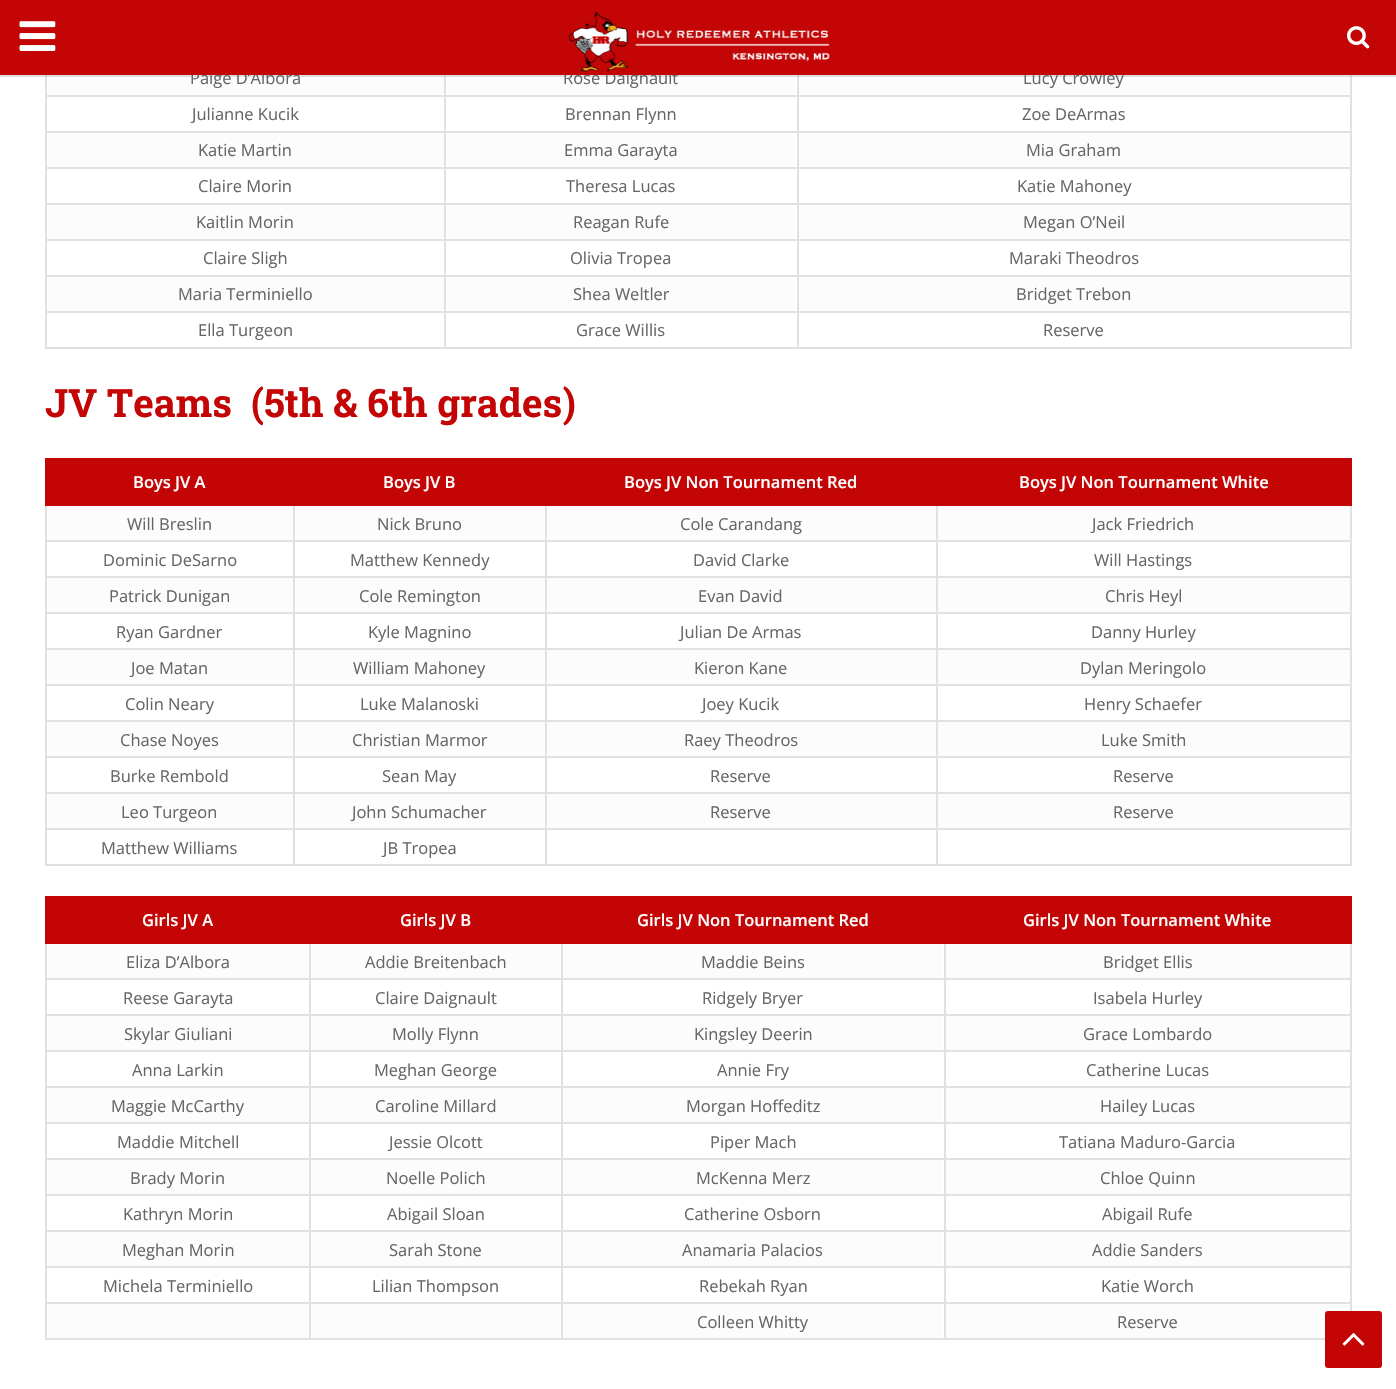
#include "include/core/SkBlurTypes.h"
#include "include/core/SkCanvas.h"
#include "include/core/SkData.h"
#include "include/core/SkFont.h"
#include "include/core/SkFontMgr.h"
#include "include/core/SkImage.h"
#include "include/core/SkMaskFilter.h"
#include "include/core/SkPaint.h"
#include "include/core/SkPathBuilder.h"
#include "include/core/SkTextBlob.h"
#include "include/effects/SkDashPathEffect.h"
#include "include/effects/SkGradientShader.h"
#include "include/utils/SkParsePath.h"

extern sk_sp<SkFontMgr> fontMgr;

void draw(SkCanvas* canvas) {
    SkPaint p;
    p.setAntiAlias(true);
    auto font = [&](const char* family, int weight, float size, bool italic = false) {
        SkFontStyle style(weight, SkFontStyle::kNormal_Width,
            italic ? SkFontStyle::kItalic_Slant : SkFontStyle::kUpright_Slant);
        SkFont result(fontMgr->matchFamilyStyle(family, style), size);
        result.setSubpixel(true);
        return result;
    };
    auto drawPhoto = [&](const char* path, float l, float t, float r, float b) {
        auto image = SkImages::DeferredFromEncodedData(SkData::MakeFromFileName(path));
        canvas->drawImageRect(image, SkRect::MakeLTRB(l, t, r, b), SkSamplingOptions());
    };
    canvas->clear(0xFFFFFFFF);
    {
        const struct { float l, t, r, b; SkColor color; } items[] = {
            {48, 75, 444, 93, 0xFFFCFCFC},
            {1350, 75, 1352, 348, 0xFFE1E1E1},
            {797, 347, 1352, 349, 0xFFE1E1E1},
            {797, 311, 799, 348, 0xFFE1E1E1},
            {797, 311, 1352, 313, 0xFFE1E1E1},
            {797, 275, 799, 312, 0xFFE1E1E1},
            {797, 275, 1352, 277, 0xFFE1E1E1},
            {797, 239, 799, 276, 0xFFE1E1E1},
            {797, 239, 1352, 241, 0xFFE1E1E1},
            {797, 203, 799, 240, 0xFFE1E1E1},
            {797, 203, 1352, 205, 0xFFE1E1E1},
            {797, 167, 799, 204, 0xFFE1E1E1},
            {797, 167, 1352, 169, 0xFFE1E1E1},
            {797, 131, 799, 168, 0xFFE1E1E1},
            {797, 131, 1352, 133, 0xFFE1E1E1},
            {797, 95, 799, 132, 0xFFE1E1E1},
            {797, 95, 1352, 97, 0xFFE1E1E1},
            {797, 75, 799, 96, 0xFFE1E1E1},
            {444, 347, 798, 349, 0xFFE1E1E1},
            {444, 311, 446, 348, 0xFFE1E1E1},
            {444, 311, 798, 313, 0xFFE1E1E1},
            {444, 275, 446, 312, 0xFFE1E1E1},
            {444, 275, 798, 277, 0xFFE1E1E1},
            {444, 239, 446, 276, 0xFFE1E1E1},
            {444, 239, 798, 241, 0xFFE1E1E1},
            {444, 203, 446, 240, 0xFFE1E1E1},
            {444, 203, 798, 205, 0xFFE1E1E1},
            {444, 167, 446, 204, 0xFFE1E1E1},
            {444, 167, 798, 169, 0xFFE1E1E1},
            {444, 131, 446, 168, 0xFFE1E1E1},
            {444, 131, 798, 133, 0xFFE1E1E1},
            {444, 95, 446, 132, 0xFFE1E1E1},
            {444, 95, 798, 97, 0xFFE1E1E1},
            {444, 75, 446, 96, 0xFFE1E1E1},
            {45, 347, 446, 349, 0xFFE1E1E1},
            {45, 311, 47, 348, 0xFFE1E1E1},
            {45, 311, 446, 313, 0xFFE1E1E1},
            {45, 275, 47, 312, 0xFFE1E1E1},
            {45, 275, 446, 277, 0xFFE1E1E1},
            {45, 239, 47, 276, 0xFFE1E1E1},
            {45, 239, 446, 241, 0xFFE1E1E1},
            {45, 203, 47, 240, 0xFFE1E1E1},
            {45, 203, 446, 205, 0xFFE1E1E1},
            {45, 167, 47, 204, 0xFFE1E1E1},
            {45, 167, 446, 169, 0xFFE1E1E1},
            {45, 131, 47, 168, 0xFFE1E1E1},
            {45, 131, 446, 133, 0xFFE1E1E1},
            {45, 95, 47, 132, 0xFFE1E1E1},
            {45, 95, 446, 97, 0xFFE1E1E1},
            {45, 75, 47, 96, 0xFFE1E1E1},
        };
        for (auto [l, t, r, b, color] : items) {
            p.setColor(color);
            canvas->drawRect(SkRect::MakeLTRB(l, t, r, b), p);
        }
    }
    auto font1 = font("Open Sans", 400, 16.5f);
    p.setColor(0xFF666666);
    canvas->drawString("Paige D’Albora", 190, 84, font1, p);
    p.setColor(0xFFFCFCFC);
    canvas->drawRect(SkRect::MakeLTRB(447, 75, 795, 93), p);
    p.setColor(0xFF666666);
    canvas->drawString("Rose Daignault", 563, 84, font1, p);
    p.setColor(0xFFFCFCFC);
    canvas->drawRect(SkRect::MakeLTRB(799, 75, 1350, 93), p);
    p.setColor(0xFF666666);
    canvas->drawString("Lucy Crowley", 1023, 84, font1, p);
    p.setColor(0x26333333);
    canvas->drawPath(SkPathBuilder().moveTo(0, -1).lineTo(0, 0).lineTo(1396, 0).lineTo(1396, 75).lineTo(0, 75).lineTo(0, 77).lineTo(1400, 77).lineTo(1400, -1).close().detach(), p);
    p.setColor(0xFFC30505);
    canvas->drawRect(SkRect::MakeLTRB(0, 0, 1396, 75), p);
    drawPhoto("media/1.png", 19, 21, 56, 51);
    drawPhoto("media/2.png", 568, 11, 830, 72);
    drawPhoto("media/3.png", 1347, 26, 1370, 49);
    p.setColor(0xFF666666);
    {
        const struct { const char* s; float x, y; } items[] = {
            {"Julianne Kucik", 192, 120},
            {"Brennan Flynn", 565, 120},
            {"Zoe DeArmas", 1022, 120},
        };
        for (auto [s, x, y] : items) {
            canvas->drawString(s, x, y, font1, p);
        }
    }
    p.setColor(0xFFFCFCFC);
    canvas->drawRect(SkRect::MakeLTRB(48, 133, 444, 165), p);
    p.setColor(0xFF666666);
    canvas->drawString("Katie Martin", 198, 156, font1, p);
    p.setColor(0xFFFCFCFC);
    canvas->drawRect(SkRect::MakeLTRB(447, 133, 795, 165), p);
    p.setColor(0xFF666666);
    canvas->drawString("Emma Garayta", 564, 156, font1, p);
    p.setColor(0xFFFCFCFC);
    canvas->drawRect(SkRect::MakeLTRB(799, 133, 1350, 165), p);
    p.setColor(0xFF666666);
    {
        const struct { const char* s; float x, y; } items[] = {
            {"Mia Graham", 1026, 156},
            {"Claire Morin", 198, 192},
            {"Theresa Lucas", 566, 192},
            {"Katie Mahoney", 1017, 192},
        };
        for (auto [s, x, y] : items) {
            canvas->drawString(s, x, y, font1, p);
        }
    }
    p.setColor(0xFFFCFCFC);
    canvas->drawRect(SkRect::MakeLTRB(48, 205, 444, 237), p);
    p.setColor(0xFF666666);
    canvas->drawString("Kaitlin Morin", 196, 228, font1, p);
    p.setColor(0xFFFCFCFC);
    canvas->drawRect(SkRect::MakeLTRB(447, 205, 795, 237), p);
    p.setColor(0xFF666666);
    canvas->drawString("Reagan Rufe", 573, 228, font1, p);
    p.setColor(0xFFFCFCFC);
    canvas->drawRect(SkRect::MakeLTRB(799, 205, 1350, 237), p);
    p.setColor(0xFF666666);
    {
        const struct { const char* s; float x, y; } items[] = {
            {"Megan O’Neil", 1023, 228},
            {"Claire Sligh", 203, 264},
            {"Olivia Tropea", 570, 264},
            {"Maraki Theodros", 1009, 264},
        };
        for (auto [s, x, y] : items) {
            canvas->drawString(s, x, y, font1, p);
        }
    }
    p.setColor(0xFFFCFCFC);
    canvas->drawRect(SkRect::MakeLTRB(48, 277, 444, 309), p);
    p.setColor(0xFF666666);
    canvas->drawString("Maria Terminiello", 178, 300, font1, p);
    p.setColor(0xFFFCFCFC);
    canvas->drawRect(SkRect::MakeLTRB(447, 277, 795, 309), p);
    p.setColor(0xFF666666);
    canvas->drawString("Shea Weltler", 573, 300, font1, p);
    p.setColor(0xFFFCFCFC);
    canvas->drawRect(SkRect::MakeLTRB(799, 277, 1350, 309), p);
    p.setColor(0xFF666666);
    {
        const struct { const char* s; float x, y; } items[] = {
            {"Bridget Trebon", 1016, 300},
            {"Ella Turgeon", 198, 336},
            {"Grace Willis", 576, 336},
            {"Reserve", 1043, 336},
        };
        for (auto [s, x, y] : items) {
            canvas->drawString(s, x, y, font1, p);
        }
    }
    auto font2 = font("Roboto Slab", 700, 39);
    p.setColor(0xFFC30505);
    canvas->drawString("JV Teams  (5th & 6th grades)", 45, 417, font2, p);
    {
        const struct { float l, t, r, b; SkColor color; } items[] = {
            {47, 460, 1350, 504, 0xFFC30505},
            {45, 458, 1352, 460, 0xFFC30505},
            {1350, 504, 1352, 866, 0xFFE1E1E1},
            {1350, 458, 1352, 506, 0xFFC30505},
            {936, 864, 1352, 866, 0xFFE1E1E1},
            {936, 828, 938, 866, 0xFFE1E1E1},
            {936, 828, 1352, 830, 0xFFE1E1E1},
            {936, 792, 938, 830, 0xFFE1E1E1},
            {936, 792, 1352, 794, 0xFFE1E1E1},
            {936, 756, 938, 794, 0xFFE1E1E1},
            {936, 756, 1352, 758, 0xFFE1E1E1},
            {936, 720, 938, 758, 0xFFE1E1E1},
            {936, 720, 1352, 722, 0xFFE1E1E1},
            {936, 684, 938, 722, 0xFFE1E1E1},
            {936, 684, 1352, 686, 0xFFE1E1E1},
            {936, 648, 938, 686, 0xFFE1E1E1},
            {936, 648, 1352, 650, 0xFFE1E1E1},
            {936, 612, 938, 650, 0xFFE1E1E1},
            {936, 612, 1352, 614, 0xFFE1E1E1},
            {936, 576, 938, 614, 0xFFE1E1E1},
            {936, 576, 1352, 578, 0xFFE1E1E1},
            {936, 540, 938, 578, 0xFFE1E1E1},
            {936, 540, 1352, 542, 0xFFE1E1E1},
            {936, 504, 938, 542, 0xFFE1E1E1},
            {545, 864, 938, 866, 0xFFE1E1E1},
            {545, 828, 547, 866, 0xFFE1E1E1},
            {545, 828, 938, 830, 0xFFE1E1E1},
            {545, 792, 547, 830, 0xFFE1E1E1},
            {545, 792, 938, 794, 0xFFE1E1E1},
            {545, 756, 547, 794, 0xFFE1E1E1},
            {545, 756, 938, 758, 0xFFE1E1E1},
            {545, 720, 547, 758, 0xFFE1E1E1},
            {545, 720, 938, 722, 0xFFE1E1E1},
            {545, 684, 547, 722, 0xFFE1E1E1},
            {545, 684, 938, 686, 0xFFE1E1E1},
            {545, 648, 547, 686, 0xFFE1E1E1},
            {545, 648, 938, 650, 0xFFE1E1E1},
            {545, 612, 547, 650, 0xFFE1E1E1},
            {545, 612, 938, 614, 0xFFE1E1E1},
            {545, 576, 547, 614, 0xFFE1E1E1},
            {545, 576, 938, 578, 0xFFE1E1E1},
            {545, 540, 547, 578, 0xFFE1E1E1},
            {545, 540, 938, 542, 0xFFE1E1E1},
            {545, 504, 547, 542, 0xFFE1E1E1},
            {293, 864, 546, 866, 0xFFE1E1E1},
            {293, 828, 295, 866, 0xFFE1E1E1},
            {293, 828, 546, 830, 0xFFE1E1E1},
            {293, 792, 295, 830, 0xFFE1E1E1},
            {293, 792, 546, 794, 0xFFE1E1E1},
            {293, 756, 295, 794, 0xFFE1E1E1},
            {293, 756, 546, 758, 0xFFE1E1E1},
            {293, 720, 295, 758, 0xFFE1E1E1},
            {293, 720, 546, 722, 0xFFE1E1E1},
            {293, 684, 295, 722, 0xFFE1E1E1},
            {293, 684, 546, 686, 0xFFE1E1E1},
            {293, 648, 295, 686, 0xFFE1E1E1},
            {293, 648, 546, 650, 0xFFE1E1E1},
            {293, 612, 295, 650, 0xFFE1E1E1},
            {293, 612, 546, 614, 0xFFE1E1E1},
            {293, 576, 295, 614, 0xFFE1E1E1},
            {293, 576, 546, 578, 0xFFE1E1E1},
            {293, 540, 295, 578, 0xFFE1E1E1},
            {293, 540, 546, 542, 0xFFE1E1E1},
            {293, 504, 295, 542, 0xFFE1E1E1},
            {45, 864, 294, 866, 0xFFE1E1E1},
            {45, 828, 47, 866, 0xFFE1E1E1},
            {45, 828, 294, 830, 0xFFE1E1E1},
            {45, 792, 47, 830, 0xFFE1E1E1},
            {45, 792, 294, 794, 0xFFE1E1E1},
            {45, 756, 47, 794, 0xFFE1E1E1},
            {45, 756, 294, 758, 0xFFE1E1E1},
            {45, 720, 47, 758, 0xFFE1E1E1},
            {45, 720, 294, 722, 0xFFE1E1E1},
            {45, 684, 47, 722, 0xFFE1E1E1},
            {45, 684, 294, 686, 0xFFE1E1E1},
            {45, 648, 47, 686, 0xFFE1E1E1},
            {45, 648, 294, 650, 0xFFE1E1E1},
            {45, 612, 47, 650, 0xFFE1E1E1},
            {45, 612, 294, 614, 0xFFE1E1E1},
            {45, 576, 47, 614, 0xFFE1E1E1},
            {45, 576, 294, 578, 0xFFE1E1E1},
            {45, 540, 47, 578, 0xFFE1E1E1},
            {45, 540, 294, 542, 0xFFE1E1E1},
            {45, 504, 47, 542, 0xFFE1E1E1},
            {45, 504, 1352, 506, 0xFFC30505},
            {45, 458, 47, 506, 0xFFC30505},
        };
        for (auto [l, t, r, b, color] : items) {
            p.setColor(color);
            canvas->drawRect(SkRect::MakeLTRB(l, t, r, b), p);
        }
    }
    auto font3 = font("Open Sans", 600, 16.5f);
    p.setColor(0xFFFFFFFF);
    {
        const struct { const char* s; float x, y; } items[] = {
            {"Boys JV A", 133, 488},
            {"Boys JV B", 383, 488},
            {"Boys JV Non Tournament Red", 624, 488},
            {"Boys JV Non Tournament White", 1019, 488},
        };
        for (auto [s, x, y] : items) {
            canvas->drawString(s, x, y, font3, p);
        }
    }
    p.setColor(0xFFFCFCFC);
    canvas->drawRect(SkRect::MakeLTRB(48, 506, 293, 540), p);
    p.setColor(0xFF666666);
    canvas->drawString("Will Breslin", 127, 530, font1, p);
    p.setColor(0xFFFCFCFC);
    canvas->drawRect(SkRect::MakeLTRB(296, 506, 545, 540), p);
    p.setColor(0xFF666666);
    canvas->drawString("Nick Bruno", 377, 530, font1, p);
    p.setColor(0xFFFCFCFC);
    canvas->drawRect(SkRect::MakeLTRB(548, 506, 935, 540), p);
    p.setColor(0xFF666666);
    canvas->drawString("Cole Carandang", 680, 530, font1, p);
    p.setColor(0xFFFCFCFC);
    canvas->drawRect(SkRect::MakeLTRB(938, 506, 1350, 540), p);
    p.setColor(0xFF666666);
    {
        const struct { const char* s; float x, y; } items[] = {
            {"Jack Friedrich", 1092, 530},
            {"Dominic DeSarno", 103, 566},
            {"Matthew Kennedy", 350, 566},
            {"David Clarke", 693, 566},
            {"Will Hastings", 1094, 566},
        };
        for (auto [s, x, y] : items) {
            canvas->drawString(s, x, y, font1, p);
        }
    }
    p.setColor(0xFFFCFCFC);
    canvas->drawRect(SkRect::MakeLTRB(48, 578, 293, 612), p);
    p.setColor(0xFF666666);
    canvas->drawString("Patrick Dunigan", 109, 602, font1, p);
    p.setColor(0xFFFCFCFC);
    canvas->drawRect(SkRect::MakeLTRB(296, 578, 545, 612), p);
    p.setColor(0xFF666666);
    canvas->drawString("Cole Remington", 359, 602, font1, p);
    p.setColor(0xFFFCFCFC);
    canvas->drawRect(SkRect::MakeLTRB(548, 578, 935, 612), p);
    p.setColor(0xFF666666);
    canvas->drawString("Evan David", 698, 602, font1, p);
    p.setColor(0xFFFCFCFC);
    canvas->drawRect(SkRect::MakeLTRB(938, 578, 1350, 612), p);
    p.setColor(0xFF666666);
    {
        const struct { const char* s; float x, y; } items[] = {
            {"Chris Heyl", 1105, 602},
            {"Ryan Gardner", 116, 638},
            {"Kyle Magnino", 368, 638},
            {"Julian De Armas", 680, 638},
            {"Danny Hurley", 1091, 638},
        };
        for (auto [s, x, y] : items) {
            canvas->drawString(s, x, y, font1, p);
        }
    }
    p.setColor(0xFFFCFCFC);
    canvas->drawRect(SkRect::MakeLTRB(48, 650, 293, 684), p);
    p.setColor(0xFF666666);
    canvas->drawString("Joe Matan", 131, 674, font1, p);
    p.setColor(0xFFFCFCFC);
    canvas->drawRect(SkRect::MakeLTRB(296, 650, 545, 684), p);
    p.setColor(0xFF666666);
    canvas->drawString("William Mahoney", 353, 674, font1, p);
    p.setColor(0xFFFCFCFC);
    canvas->drawRect(SkRect::MakeLTRB(548, 650, 935, 684), p);
    p.setColor(0xFF666666);
    canvas->drawString("Kieron Kane", 694, 674, font1, p);
    p.setColor(0xFFFCFCFC);
    canvas->drawRect(SkRect::MakeLTRB(938, 650, 1350, 684), p);
    p.setColor(0xFF666666);
    {
        const struct { const char* s; float x, y; } items[] = {
            {"Dylan Meringolo", 1080, 674},
            {"Colin Neary", 125, 710},
            {"Luke Malanoski", 360, 710},
            {"Joey Kucik", 702, 710},
            {"Henry Schaefer", 1084, 710},
        };
        for (auto [s, x, y] : items) {
            canvas->drawString(s, x, y, font1, p);
        }
    }
    p.setColor(0xFFFCFCFC);
    canvas->drawRect(SkRect::MakeLTRB(48, 722, 293, 756), p);
    p.setColor(0xFF666666);
    canvas->drawString("Chase Noyes", 120, 746, font1, p);
    p.setColor(0xFFFCFCFC);
    canvas->drawRect(SkRect::MakeLTRB(296, 722, 545, 756), p);
    p.setColor(0xFF666666);
    canvas->drawString("Christian Marmor", 352, 746, font1, p);
    p.setColor(0xFFFCFCFC);
    canvas->drawRect(SkRect::MakeLTRB(548, 722, 935, 756), p);
    p.setColor(0xFF666666);
    canvas->drawString("Raey Theodros", 684, 746, font1, p);
    p.setColor(0xFFFCFCFC);
    canvas->drawRect(SkRect::MakeLTRB(938, 722, 1350, 756), p);
    p.setColor(0xFF666666);
    {
        const struct { const char* s; float x, y; } items[] = {
            {"Luke Smith", 1101, 746},
            {"Burke Rembold", 110, 782},
            {"Sean May", 382, 782},
            {"Reserve", 710, 782},
            {"Reserve", 1113, 782},
        };
        for (auto [s, x, y] : items) {
            canvas->drawString(s, x, y, font1, p);
        }
    }
    p.setColor(0xFFFCFCFC);
    canvas->drawRect(SkRect::MakeLTRB(48, 794, 293, 828), p);
    p.setColor(0xFF666666);
    canvas->drawString("Leo Turgeon", 121, 818, font1, p);
    p.setColor(0xFFFCFCFC);
    canvas->drawRect(SkRect::MakeLTRB(296, 794, 545, 828), p);
    p.setColor(0xFF666666);
    canvas->drawString("John Schumacher", 352, 818, font1, p);
    p.setColor(0xFFFCFCFC);
    canvas->drawRect(SkRect::MakeLTRB(548, 794, 935, 828), p);
    p.setColor(0xFF666666);
    canvas->drawString("Reserve", 710, 818, font1, p);
    p.setColor(0xFFFCFCFC);
    canvas->drawRect(SkRect::MakeLTRB(938, 794, 1350, 828), p);
    p.setColor(0xFF666666);
    {
        const struct { const char* s; float x, y; } items[] = {
            {"Reserve", 1113, 818},
            {"Matthew Williams", 101, 854},
            {"JB Tropea", 383, 854},
        };
        for (auto [s, x, y] : items) {
            canvas->drawString(s, x, y, font1, p);
        }
    }
    {
        const struct { float l, t, r, b; SkColor color; } items[] = {
            {47, 898, 1350, 942, 0xFFC30505},
            {45, 896, 1352, 898, 0xFFC30505},
            {1350, 942, 1352, 1311, 0xFFE1E1E1},
            {1350, 896, 1352, 944, 0xFFC30505},
            {944, 1338, 1325, 1340, 0xFFE1E1E1},
            {944, 1302, 946, 1340, 0xFFE1E1E1},
            {944, 1302, 1352, 1304, 0xFFE1E1E1},
            {944, 1266, 946, 1304, 0xFFE1E1E1},
            {944, 1266, 1352, 1268, 0xFFE1E1E1},
            {944, 1230, 946, 1268, 0xFFE1E1E1},
            {944, 1230, 1352, 1232, 0xFFE1E1E1},
            {944, 1194, 946, 1232, 0xFFE1E1E1},
            {944, 1194, 1352, 1196, 0xFFE1E1E1},
            {944, 1158, 946, 1196, 0xFFE1E1E1},
            {944, 1158, 1352, 1160, 0xFFE1E1E1},
            {944, 1122, 946, 1160, 0xFFE1E1E1},
            {944, 1122, 1352, 1124, 0xFFE1E1E1},
            {944, 1086, 946, 1124, 0xFFE1E1E1},
            {944, 1086, 1352, 1088, 0xFFE1E1E1},
            {944, 1050, 946, 1088, 0xFFE1E1E1},
            {944, 1050, 1352, 1052, 0xFFE1E1E1},
            {944, 1014, 946, 1052, 0xFFE1E1E1},
            {944, 1014, 1352, 1016, 0xFFE1E1E1},
            {944, 978, 946, 1016, 0xFFE1E1E1},
            {944, 978, 1352, 980, 0xFFE1E1E1},
            {944, 942, 946, 980, 0xFFE1E1E1},
            {561, 1338, 945, 1340, 0xFFE1E1E1},
            {561, 1302, 563, 1340, 0xFFE1E1E1},
            {561, 1302, 945, 1304, 0xFFE1E1E1},
            {561, 1266, 563, 1304, 0xFFE1E1E1},
            {561, 1266, 945, 1268, 0xFFE1E1E1},
            {561, 1230, 563, 1268, 0xFFE1E1E1},
            {561, 1230, 945, 1232, 0xFFE1E1E1},
            {561, 1194, 563, 1232, 0xFFE1E1E1},
            {561, 1194, 945, 1196, 0xFFE1E1E1},
            {561, 1158, 563, 1196, 0xFFE1E1E1},
            {561, 1158, 945, 1160, 0xFFE1E1E1},
            {561, 1122, 563, 1160, 0xFFE1E1E1},
            {561, 1122, 945, 1124, 0xFFE1E1E1},
            {561, 1086, 563, 1124, 0xFFE1E1E1},
            {561, 1086, 945, 1088, 0xFFE1E1E1},
            {561, 1050, 563, 1088, 0xFFE1E1E1},
            {561, 1050, 945, 1052, 0xFFE1E1E1},
            {561, 1014, 563, 1052, 0xFFE1E1E1},
            {561, 1014, 945, 1016, 0xFFE1E1E1},
            {561, 978, 563, 1016, 0xFFE1E1E1},
            {561, 978, 945, 980, 0xFFE1E1E1},
            {561, 942, 563, 980, 0xFFE1E1E1},
            {309, 1338, 563, 1340, 0xFFE1E1E1},
            {309, 1302, 311, 1340, 0xFFE1E1E1},
            {309, 1302, 563, 1304, 0xFFE1E1E1},
            {309, 1266, 311, 1304, 0xFFE1E1E1},
            {309, 1266, 563, 1268, 0xFFE1E1E1},
            {309, 1230, 311, 1268, 0xFFE1E1E1},
            {309, 1230, 563, 1232, 0xFFE1E1E1},
            {309, 1194, 311, 1232, 0xFFE1E1E1},
            {309, 1194, 563, 1196, 0xFFE1E1E1},
            {309, 1158, 311, 1196, 0xFFE1E1E1},
            {309, 1158, 563, 1160, 0xFFE1E1E1},
            {309, 1122, 311, 1160, 0xFFE1E1E1},
            {309, 1122, 563, 1124, 0xFFE1E1E1},
            {309, 1086, 311, 1124, 0xFFE1E1E1},
            {309, 1086, 563, 1088, 0xFFE1E1E1},
            {309, 1050, 311, 1088, 0xFFE1E1E1},
            {309, 1050, 563, 1052, 0xFFE1E1E1},
            {309, 1014, 311, 1052, 0xFFE1E1E1},
            {309, 1014, 563, 1016, 0xFFE1E1E1},
            {309, 978, 311, 1016, 0xFFE1E1E1},
            {309, 978, 563, 980, 0xFFE1E1E1},
            {309, 942, 311, 980, 0xFFE1E1E1},
            {45, 1338, 311, 1340, 0xFFE1E1E1},
            {45, 1302, 47, 1340, 0xFFE1E1E1},
            {45, 1302, 311, 1304, 0xFFE1E1E1},
            {45, 1266, 47, 1304, 0xFFE1E1E1},
            {45, 1266, 311, 1268, 0xFFE1E1E1},
            {45, 1230, 47, 1268, 0xFFE1E1E1},
            {45, 1230, 311, 1232, 0xFFE1E1E1},
            {45, 1194, 47, 1232, 0xFFE1E1E1},
            {45, 1194, 311, 1196, 0xFFE1E1E1},
            {45, 1158, 47, 1196, 0xFFE1E1E1},
            {45, 1158, 311, 1160, 0xFFE1E1E1},
            {45, 1122, 47, 1160, 0xFFE1E1E1},
            {45, 1122, 311, 1124, 0xFFE1E1E1},
            {45, 1086, 47, 1124, 0xFFE1E1E1},
            {45, 1086, 311, 1088, 0xFFE1E1E1},
            {45, 1050, 47, 1088, 0xFFE1E1E1},
            {45, 1050, 311, 1052, 0xFFE1E1E1},
            {45, 1014, 47, 1052, 0xFFE1E1E1},
            {45, 1014, 311, 1016, 0xFFE1E1E1},
            {45, 978, 47, 1016, 0xFFE1E1E1},
            {45, 978, 311, 980, 0xFFE1E1E1},
            {45, 942, 47, 980, 0xFFE1E1E1},
            {45, 942, 1352, 944, 0xFFC30505},
            {45, 896, 47, 944, 0xFFC30505},
        };
        for (auto [l, t, r, b, color] : items) {
            p.setColor(color);
            canvas->drawRect(SkRect::MakeLTRB(l, t, r, b), p);
        }
    }
    p.setColor(0xFFFFFFFF);
    {
        const struct { const char* s; float x, y; } items[] = {
            {"Girls JV A", 142, 926},
            {"Girls JV B", 400, 926},
            {"Girls JV Non Tournament Red", 637, 926},
            {"Girls JV Non Tournament White", 1023, 926},
        };
        for (auto [s, x, y] : items) {
            canvas->drawString(s, x, y, font3, p);
        }
    }
    p.setColor(0xFFFCFCFC);
    canvas->drawRect(SkRect::MakeLTRB(48, 944, 309, 978), p);
    p.setColor(0xFF666666);
    canvas->drawString("Eliza D’Albora", 126, 968, font1, p);
    p.setColor(0xFFFCFCFC);
    canvas->drawRect(SkRect::MakeLTRB(312, 944, 560, 978), p);
    p.setColor(0xFF666666);
    canvas->drawString("Addie Breitenbach", 365, 968, font1, p);
    p.setColor(0xFFFCFCFC);
    canvas->drawRect(SkRect::MakeLTRB(563, 944, 942, 978), p);
    p.setColor(0xFF666666);
    canvas->drawString("Maddie Beins", 701, 968, font1, p);
    p.setColor(0xFFFCFCFC);
    canvas->drawRect(SkRect::MakeLTRB(946, 944, 1350, 978), p);
    p.setColor(0xFF666666);
    {
        const struct { const char* s; float x, y; } items[] = {
            {"Bridget Ellis", 1103, 968},
            {"Reese Garayta", 123, 1004},
            {"Claire Daignault", 375, 1004},
            {"Ridgely Bryer", 702, 1004},
            {"Isabela Hurley", 1093, 1004},
        };
        for (auto [s, x, y] : items) {
            canvas->drawString(s, x, y, font1, p);
        }
    }
    p.setColor(0xFFFCFCFC);
    canvas->drawRect(SkRect::MakeLTRB(48, 1016, 309, 1050), p);
    p.setColor(0xFF666666);
    canvas->drawString("Skylar Giuliani", 124, 1040, font1, p);
    p.setColor(0xFFFCFCFC);
    canvas->drawRect(SkRect::MakeLTRB(312, 1016, 560, 1050), p);
    p.setColor(0xFF666666);
    canvas->drawString("Molly Flynn", 392, 1040, font1, p);
    p.setColor(0xFFFCFCFC);
    canvas->drawRect(SkRect::MakeLTRB(563, 1016, 942, 1050), p);
    p.setColor(0xFF666666);
    canvas->drawString("Kingsley Deerin", 694, 1040, font1, p);
    p.setColor(0xFFFCFCFC);
    canvas->drawRect(SkRect::MakeLTRB(946, 1016, 1350, 1050), p);
    p.setColor(0xFF666666);
    {
        const struct { const char* s; float x, y; } items[] = {
            {"Grace Lombardo", 1083, 1040},
            {"Anna Larkin", 132, 1076},
            {"Meghan George", 374, 1076},
            {"Annie Fry", 717, 1076},
            {"Catherine Lucas", 1086, 1076},
        };
        for (auto [s, x, y] : items) {
            canvas->drawString(s, x, y, font1, p);
        }
    }
    p.setColor(0xFFFCFCFC);
    canvas->drawRect(SkRect::MakeLTRB(48, 1088, 309, 1122), p);
    p.setColor(0xFF666666);
    canvas->drawString("Maggie McCarthy", 111, 1112, font1, p);
    p.setColor(0xFFFCFCFC);
    canvas->drawRect(SkRect::MakeLTRB(312, 1088, 560, 1122), p);
    p.setColor(0xFF666666);
    canvas->drawString("Caroline Millard", 375, 1112, font1, p);
    p.setColor(0xFFFCFCFC);
    canvas->drawRect(SkRect::MakeLTRB(563, 1088, 942, 1122), p);
    p.setColor(0xFF666666);
    canvas->drawString("Morgan Hoffeditz", 686, 1112, font1, p);
    p.setColor(0xFFFCFCFC);
    canvas->drawRect(SkRect::MakeLTRB(946, 1088, 1350, 1122), p);
    p.setColor(0xFF666666);
    {
        const struct { const char* s; float x, y; } items[] = {
            {"Hailey Lucas", 1100, 1112},
            {"Maddie Mitchell", 117, 1148},
            {"Jessie Olcott", 389, 1148},
            {"Piper Mach", 710, 1148},
            {"Tatiana Maduro-Garcia", 1059, 1148},
        };
        for (auto [s, x, y] : items) {
            canvas->drawString(s, x, y, font1, p);
        }
    }
    p.setColor(0xFFFCFCFC);
    canvas->drawRect(SkRect::MakeLTRB(48, 1160, 309, 1194), p);
    p.setColor(0xFF666666);
    canvas->drawString("Brady Morin", 130, 1184, font1, p);
    p.setColor(0xFFFCFCFC);
    canvas->drawRect(SkRect::MakeLTRB(312, 1160, 560, 1194), p);
    p.setColor(0xFF666666);
    canvas->drawString("Noelle Polich", 386, 1184, font1, p);
    p.setColor(0xFFFCFCFC);
    canvas->drawRect(SkRect::MakeLTRB(563, 1160, 942, 1194), p);
    p.setColor(0xFF666666);
    canvas->drawString("McKenna Merz", 696, 1184, font1, p);
    p.setColor(0xFFFCFCFC);
    canvas->drawRect(SkRect::MakeLTRB(946, 1160, 1350, 1194), p);
    p.setColor(0xFF666666);
    {
        const struct { const char* s; float x, y; } items[] = {
            {"Chloe Quinn", 1100, 1184},
            {"Kathryn Morin", 123, 1220},
            {"Abigail Sloan", 387, 1220},
            {"Catherine Osborn", 684, 1220},
            {"Abigail Rufe", 1102, 1220},
        };
        for (auto [s, x, y] : items) {
            canvas->drawString(s, x, y, font1, p);
        }
    }
    p.setColor(0xFFFCFCFC);
    canvas->drawRect(SkRect::MakeLTRB(48, 1232, 309, 1266), p);
    p.setColor(0xFF666666);
    canvas->drawString("Meghan Morin", 122, 1256, font1, p);
    p.setColor(0xFFFCFCFC);
    canvas->drawRect(SkRect::MakeLTRB(312, 1232, 560, 1266), p);
    p.setColor(0xFF666666);
    canvas->drawString("Sarah Stone", 389, 1256, font1, p);
    p.setColor(0xFFFCFCFC);
    canvas->drawRect(SkRect::MakeLTRB(563, 1232, 942, 1266), p);
    p.setColor(0xFF666666);
    canvas->drawString("Anamaria Palacios", 682, 1256, font1, p);
    p.setColor(0xFFFCFCFC);
    canvas->drawRect(SkRect::MakeLTRB(946, 1232, 1350, 1266), p);
    p.setColor(0xFF666666);
    {
        const struct { const char* s; float x, y; } items[] = {
            {"Addie Sanders", 1092, 1256},
            {"Michela Terminiello", 103, 1292},
            {"Lilian Thompson", 372, 1292},
            {"Rebekah Ryan", 699, 1292},
            {"Katie Worch", 1101, 1292},
        };
        for (auto [s, x, y] : items) {
            canvas->drawString(s, x, y, font1, p);
        }
    }
    {
        const struct { float l, t, r, b; SkColor color; } items[] = {
            {48, 1304, 309, 1338, 0xFFFCFCFC},
            {312, 1304, 560, 1338, 0xFFFCFCFC},
            {563, 1304, 942, 1338, 0xFFFCFCFC},
        };
        for (auto [l, t, r, b, color] : items) {
            p.setColor(color);
            canvas->drawRect(SkRect::MakeLTRB(l, t, r, b), p);
        }
    }
    p.setColor(0xFF666666);
    canvas->drawString("Colleen Whitty", 697, 1328, font1, p);
    p.setColor(0xFFFCFCFC);
    canvas->drawRect(SkRect::MakeLTRB(946, 1304, 1350, 1338), p);
    p.setColor(0xFF666666);
    canvas->drawString("Reserve", 1117, 1328, font1, p);
    p.setColor(0xFFC30505);
    canvas->drawRoundRect(SkRect::MakeLTRB(1325, 1311, 1382, 1368), 3, 3, p);
    drawPhoto("media/4.png", 1342, 1333, 1365, 1346);
}
